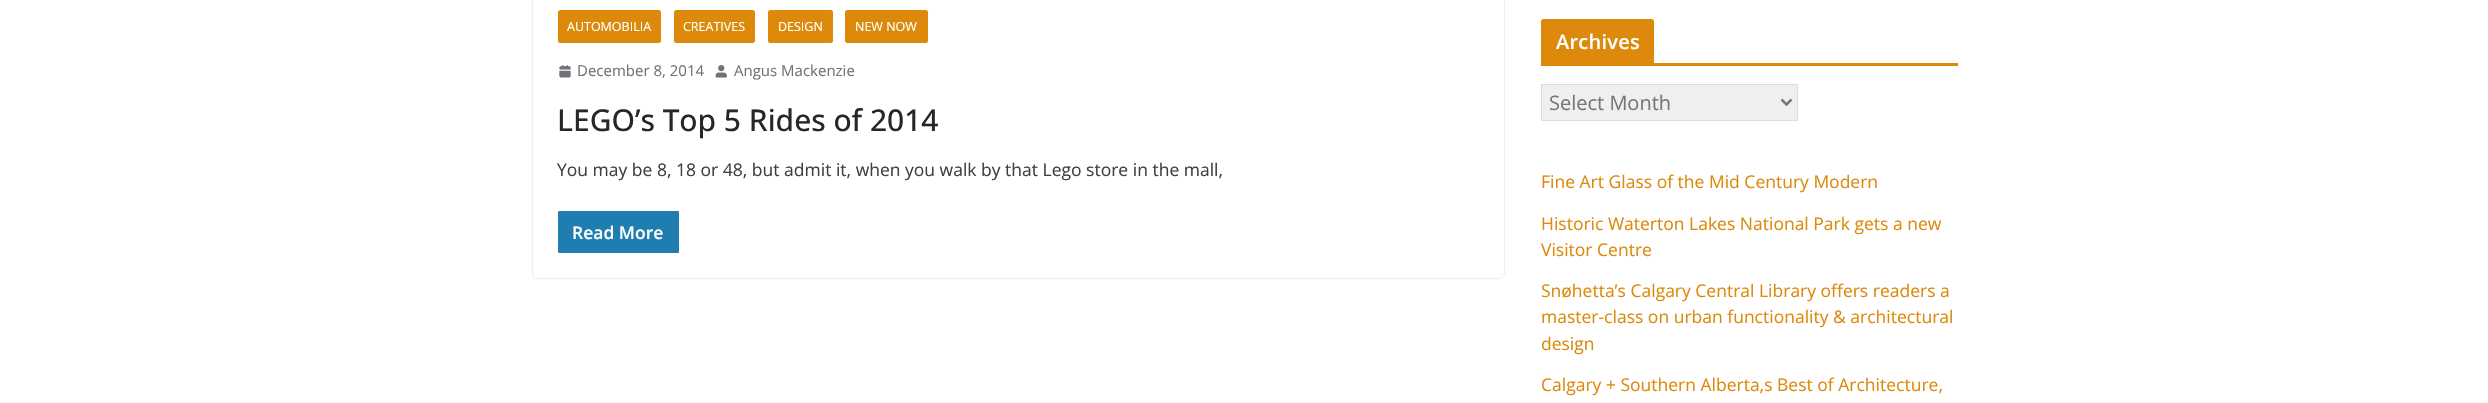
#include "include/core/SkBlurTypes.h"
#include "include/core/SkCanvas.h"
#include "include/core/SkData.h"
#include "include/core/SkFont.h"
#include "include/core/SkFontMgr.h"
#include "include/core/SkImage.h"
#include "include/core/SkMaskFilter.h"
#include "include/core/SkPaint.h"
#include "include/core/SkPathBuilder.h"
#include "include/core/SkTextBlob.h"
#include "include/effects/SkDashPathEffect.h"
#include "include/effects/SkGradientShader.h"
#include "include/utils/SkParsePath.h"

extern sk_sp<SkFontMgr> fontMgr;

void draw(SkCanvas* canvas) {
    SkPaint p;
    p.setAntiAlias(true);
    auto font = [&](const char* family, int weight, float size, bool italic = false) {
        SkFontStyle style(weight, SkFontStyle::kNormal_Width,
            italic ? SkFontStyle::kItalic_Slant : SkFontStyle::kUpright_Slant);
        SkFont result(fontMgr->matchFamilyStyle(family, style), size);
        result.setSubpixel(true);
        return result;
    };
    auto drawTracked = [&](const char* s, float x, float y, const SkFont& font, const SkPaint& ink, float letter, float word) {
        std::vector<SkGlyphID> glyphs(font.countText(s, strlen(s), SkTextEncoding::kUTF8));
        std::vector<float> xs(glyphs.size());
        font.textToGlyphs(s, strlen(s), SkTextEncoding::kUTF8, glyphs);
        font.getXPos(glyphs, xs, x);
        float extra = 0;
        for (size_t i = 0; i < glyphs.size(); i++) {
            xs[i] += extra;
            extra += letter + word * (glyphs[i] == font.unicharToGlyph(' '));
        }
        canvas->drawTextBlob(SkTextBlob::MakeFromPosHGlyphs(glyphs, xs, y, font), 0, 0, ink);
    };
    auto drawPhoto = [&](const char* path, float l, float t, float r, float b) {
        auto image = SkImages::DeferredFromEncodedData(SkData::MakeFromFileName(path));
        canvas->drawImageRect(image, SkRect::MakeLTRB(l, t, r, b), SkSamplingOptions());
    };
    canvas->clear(0xFFFFFFFF);
    canvas->save();
    canvas->clipPath(SkPathBuilder(SkPathFillType::kEvenOdd).moveTo(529, 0).lineTo(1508, 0).lineTo(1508, 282).lineTo(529, 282).close().moveTo(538, -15).lineTo(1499, -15).cubicTo(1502, -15, 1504, -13, 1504, -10).lineTo(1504, 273).cubicTo(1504, 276, 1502, 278, 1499, 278).lineTo(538, 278).cubicTo(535, 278, 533, 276, 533, 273).lineTo(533, -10).cubicTo(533, -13, 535, -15, 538, -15).close().detach(), true);
    p.setColor(0x3D000000);
    p.setMaskFilter(SkMaskFilter::MakeBlur(kNormal_SkBlurStyle, 1));
    canvas->drawRoundRect(SkRect::MakeLTRB(533, -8, 1504, 278), 5, 5, p);
    p.setMaskFilter(nullptr);
    canvas->restore();
    p.setColor(0xFFDD890B);
    canvas->drawRoundRect(SkRect::MakeLTRB(558, 10, 661, 43), 2.5f, 2.5f, p);
    auto font1 = font("Open Sans", 400, 12.5f);
    p.setColor(0xFFFFFFFF);
    canvas->drawString("AUTOMOBILIA", 567, 31, font1, p);
    p.setColor(0xFFDD890B);
    canvas->drawRoundRect(SkRect::MakeLTRB(674, 10, 755, 43), 2.5f, 2.5f, p);
    p.setColor(0xFFFFFFFF);
    canvas->drawString("CREATIVES", 683, 31, font1, p);
    p.setColor(0xFFDD890B);
    canvas->drawRoundRect(SkRect::MakeLTRB(768, 10, 833, 43), 2.5f, 2.5f, p);
    p.setColor(0xFFFFFFFF);
    canvas->drawString("DESIGN", 778, 31, font1, p);
    p.setColor(0xFFDD890B);
    canvas->drawRoundRect(SkRect::MakeLTRB(845, 10, 928, 43), 2.5f, 2.5f, p);
    p.setColor(0xFFFFFFFF);
    canvas->drawString("NEW NOW", 855, 31, font1, p);
    drawPhoto("media/1.png", 559, 65, 571, 78);
    auto font2 = font("Open Sans", 400, 15);
    p.setColor(0xFF71717A);
    canvas->drawString("December 8, 2014", 577, 76, font2, p);
    drawPhoto("media/2.png", 715, 65, 727, 78);
    canvas->drawString("Angus Mackenzie", 734, 76, font2, p);
    auto font3 = font("Open Sans", 500, 30);
    p.setColor(0xFF27272A);
    canvas->drawString("LEGO’s Top 5 Rides of 2014", 557, 131, font3, p);
    auto font4 = font("Open Sans", 400, 17.5f);
    p.setColor(0xFF3F3F46);
    canvas->drawString("You may be 8, 18 or 48, but admit it, when you walk by that Lego store in the mall,", 557, 176, font4, p);
    p.setColor(0xFFDD890B);
    canvas->drawRect(SkRect::MakeLTRB(558, 211, 679, 253), p);
    p.setColor(0xFF207DAF);
    canvas->drawRoundRect(SkRect::MakeLTRB(558, 211, 679, 253), 2.5f, 2.5f, p);
    auto font5 = font("Open Sans", 600, 17.5f);
    p.setColor(0xFFFFFFFF);
    canvas->drawString("Read More", 572, 239, font5, p);
    p.setColor(0xFFDD890B);
    canvas->drawRect(SkRect::MakeLTRB(1541, 63, 1958, 66), p);
    canvas->drawPath(SkPathBuilder().moveTo(1543.5f, 19).lineTo(1651.5f, 19).cubicTo(1653, 19, 1654, 20, 1654, 21.5f).lineTo(1654, 63).lineTo(1541, 63).lineTo(1541, 21.5f).cubicTo(1541, 20, 1542, 19, 1543.5f, 19).close().detach(), p);
    auto font6 = font("Open Sans", 600, 20);
    p.setColor(0xFFFFFFFF);
    drawTracked("Archives", 1556, 49, font6, p, 0.25f, 0);
    p.setColor(0xFFEFEFEF);
    canvas->drawRect(SkRect::MakeLTRB(1541.5f, 84.5f, 1797.5f, 120.5f), p);
    p.setStyle(SkPaint::kStroke_Style);
    p.setStrokeWidth(1);
    p.setColor(0xFFDDDDDD);
    canvas->drawRect(SkRect::MakeLTRB(1541.5f, 84.5f, 1797.5f, 120.5f), p);
    p.setStrokeWidth(2.5f);
    p.setColor(0xFF777777);
    canvas->drawPath(SkPathBuilder().moveTo(1781.5f, 99.5f).lineTo(1786.5f, 104.5f).lineTo(1791.5f, 99.5f).detach(), p);
    auto font7 = font("Open Sans", 400, 20);
    p.setStyle(SkPaint::kFill_Style);
    canvas->drawString("Select Month", 1549, 110, font7, p);
    p.setColor(0xFFDD890B);
    {
        const struct { const char* s; float x, y; } items[] = {
            {"Fine Art Glass of the Mid Century Modern", 1541, 188},
            {"Historic Waterton Lakes National Park gets a new", 1541, 230},
            {"Visitor Centre", 1541, 256},
            {"Snøhetta’s Calgary Central Library offers readers a", 1541, 297},
            {"master-class on urban functionality & architectural", 1541, 323},
            {"design", 1541, 350},
            {"Calgary + Southern Alberta,s Best of Architecture,", 1541, 391},
        };
        for (auto [s, x, y] : items) {
            canvas->drawString(s, x, y, font4, p);
        }
    }
}
